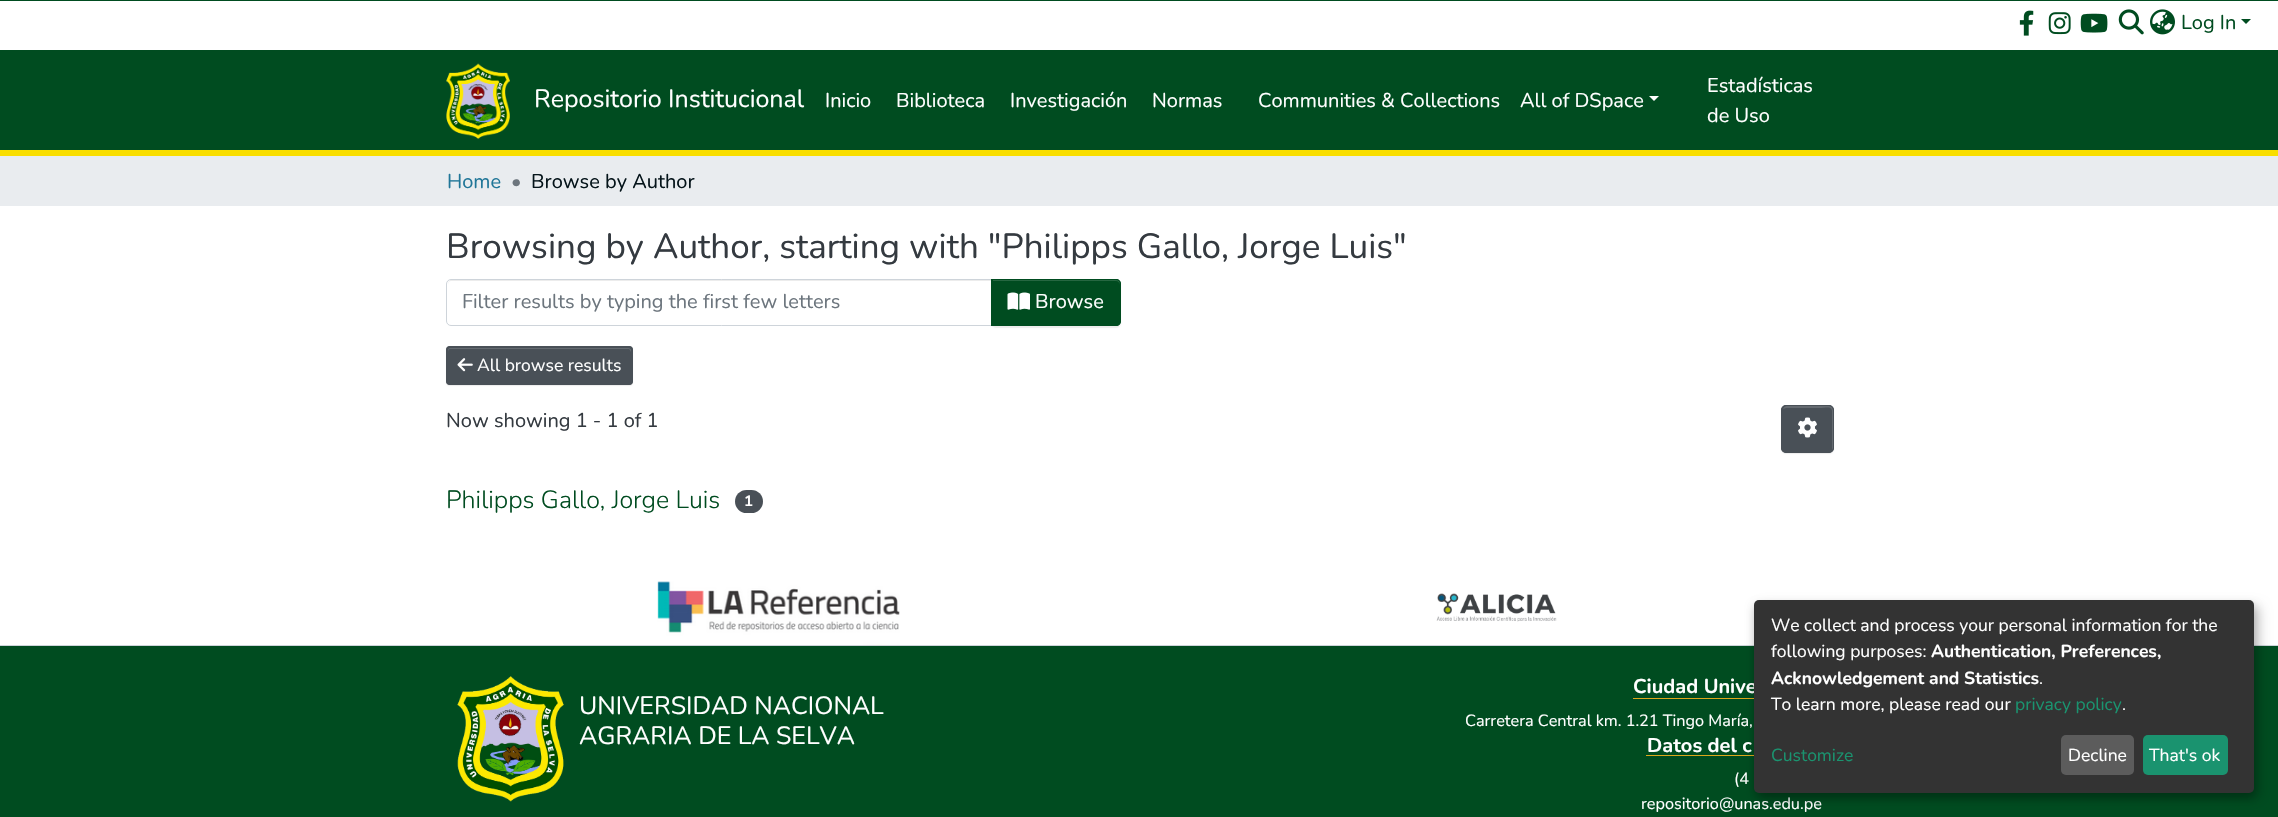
#include "include/core/SkBlurTypes.h"
#include "include/core/SkCanvas.h"
#include "include/core/SkData.h"
#include "include/core/SkFont.h"
#include "include/core/SkFontMgr.h"
#include "include/core/SkImage.h"
#include "include/core/SkMaskFilter.h"
#include "include/core/SkPaint.h"
#include "include/core/SkPathBuilder.h"
#include "include/core/SkTextBlob.h"
#include "include/effects/SkDashPathEffect.h"
#include "include/effects/SkGradientShader.h"
#include "include/utils/SkParsePath.h"

extern sk_sp<SkFontMgr> fontMgr;

void draw(SkCanvas* canvas) {
    SkPaint p;
    p.setAntiAlias(true);
    auto font = [&](const char* family, int weight, float size, bool italic = false) {
        SkFontStyle style(weight, SkFontStyle::kNormal_Width,
            italic ? SkFontStyle::kItalic_Slant : SkFontStyle::kUpright_Slant);
        SkFont result(fontMgr->matchFamilyStyle(family, style), size);
        result.setSubpixel(true);
        return result;
    };
    auto drawPhoto = [&](const char* path, float l, float t, float r, float b) {
        auto image = SkImages::DeferredFromEncodedData(SkData::MakeFromFileName(path));
        canvas->drawImageRect(image, SkRect::MakeLTRB(l, t, r, b), SkSamplingOptions());
    };
    canvas->clear(0xFFFFFFFF);
    p.setColor(0xFFF9DE00);
    canvas->drawRect(SkRect::MakeLTRB(0, 150, 2278, 156), p);
    p.setColor(0xFF004C20);
    canvas->drawRect(SkRect::MakeLTRB(0, 0, 2278, 1), p);
    drawPhoto("media/1.png", 2019, 10, 2034, 36);
    drawPhoto("media/2.png", 2048, 12, 2071, 35);
    drawPhoto("media/3.png", 2080, 13, 2108, 33);
    drawPhoto("media/4.png", 2118, 9, 2144, 35);
    drawPhoto("media/5.png", 2150, 9, 2175, 35);
    auto font1 = font("Nunito", 400, 20);
    canvas->drawString("Log In", 2181, 29, font1, p);
    canvas->drawPath(SkPathBuilder().moveTo(2241, 19).lineTo(2251, 19).lineTo(2246, 24).close().detach(), p);
    canvas->drawRect(SkRect::MakeLTRB(0, 50, 2278, 150), p);
    drawPhoto("media/6.png", 446, 63, 510, 139);
    auto font2 = font("Nunito", 400, 25);
    p.setColor(0xFFFFFFFF);
    canvas->drawString("Repositorio Institucional", 534, 107, font2, p);
    {
        const struct { const char* s; float x, y; } items[] = {
            {"Inicio", 825, 107},
            {"Biblioteca", 896, 107},
            {"Investigación", 1010, 107},
            {"Normas", 1152, 107},
            {"Communities & Collections", 1258, 107},
            {"All of DSpace", 1520, 107},
        };
        for (auto [s, x, y] : items) {
            canvas->drawString(s, x, y, font1, p);
        }
    }
    canvas->drawPath(SkPathBuilder().moveTo(1649, 96).lineTo(1659, 96).lineTo(1654, 101).close().detach(), p);
    canvas->drawString("Estadísticas", 1707, 92, font1, p);
    canvas->drawString("de Uso", 1707, 122, font1, p);
    p.setColor(0xFFE9ECEF);
    canvas->drawRect(SkRect::MakeLTRB(0, 156, 2278, 206), p);
    p.setColor(0xFF207698);
    canvas->drawString("Home", 447, 188, font1, p);
    p.setColor(0xFF6C757D);
    canvas->drawString("•", 511, 188, font1, p);
    p.setColor(0xFF05141A);
    canvas->drawString("Browse by Author", 531, 188, font1, p);
    auto font3 = font("Nunito", 400, 35);
    p.setColor(0xFF343A40);
    canvas->drawString("Browsing by Author, starting with \"Philipps Gallo, Jorge Luis\"", 446, 258, font3, p);
    p.setColor(0xFFECECEC);
    canvas->drawPath(SkPathBuilder().moveTo(451, 281).lineTo(991, 281).lineTo(991, 280).lineTo(452, 280).cubicTo(449, 280, 448, 282, 448, 285).cubicTo(448, 283, 449, 281, 451, 281).close().detach(), p);
    p.setStyle(SkPaint::kStroke_Style);
    p.setStrokeWidth(1);
    p.setColor(0xFFCED4DA);
    canvas->drawPath(SkPathBuilder().moveTo(451, 279.5f).lineTo(992.5f, 279.5f).lineTo(992.5f, 325.5f).lineTo(451, 325.5f).cubicTo(448.5f, 325.5f, 446.5f, 323.5f, 446.5f, 321).lineTo(446.5f, 284).cubicTo(446.5f, 281.5f, 448.5f, 279.5f, 451, 279.5f).close().detach(), p);
    p.setStyle(SkPaint::kFill_Style);
    p.setColor(0xFF6C757D);
    canvas->drawString("Filter results by typing the first few letters", 462, 308, font1, p);
    p.setColor(0x12000000);
    p.setMaskFilter(SkMaskFilter::MakeBlur(kNormal_SkBlurStyle, 0.5f));
    canvas->drawRoundRect(SkRect::MakeLTRB(991, 280, 1121, 328), 5, 5, p);
    p.setMaskFilter(nullptr);
    p.setColor(0xFF004C20);
    canvas->drawPath(SkPathBuilder().moveTo(991, 279).lineTo(1116, 279).cubicTo(1119, 279, 1121, 281, 1121, 284).lineTo(1121, 321).cubicTo(1121, 324, 1119, 326, 1116, 326).lineTo(991, 326).close().detach(), p);
    p.setColor(0xFF266741);
    canvas->drawPath(SkPathBuilder().moveTo(993, 280).lineTo(993, 281).lineTo(1116, 281).cubicTo(1118, 281, 1120, 283, 1120, 285).cubicTo(1120, 282, 1119, 280, 1116, 280).close().detach(), p);
    p.setStyle(SkPaint::kStroke_Style);
    p.setColor(0xFF004C20);
    canvas->drawPath(SkPathBuilder().moveTo(991.5f, 279.5f).lineTo(1116, 279.5f).cubicTo(1118.5f, 279.5f, 1120.5f, 281.5f, 1120.5f, 284).lineTo(1120.5f, 321).cubicTo(1120.5f, 323.5f, 1118.5f, 325.5f, 1116, 325.5f).lineTo(991.5f, 325.5f).close().detach(), p);
    drawPhoto("media/7.png", 1007, 292, 1030, 310);
    p.setStyle(SkPaint::kFill_Style);
    p.setColor(0xFFFFFFFF);
    canvas->drawString("Browse", 1035, 308, font1, p);
    p.setColor(0x12000000);
    p.setMaskFilter(SkMaskFilter::MakeBlur(kNormal_SkBlurStyle, 0.5f));
    canvas->drawRoundRect(SkRect::MakeLTRB(446, 348, 633, 386), 4, 4, p);
    p.setMaskFilter(nullptr);
    p.setColor(0xFF495057);
    canvas->drawRoundRect(SkRect::MakeLTRB(446, 346, 633, 385), 4, 4, p);
    p.setColor(0xFF646A70);
    canvas->drawPath(SkPathBuilder().moveTo(450, 349).lineTo(629, 349).lineTo(630, 350).lineTo(631, 352).lineTo(631, 350).cubicTo(631, 349, 630, 348, 628, 348).lineTo(450, 348).cubicTo(449, 348, 448, 349, 448, 350).lineTo(448, 352).cubicTo(448, 350, 449, 349, 450, 349).close().detach(), p);
    p.setStyle(SkPaint::kStroke_Style);
    p.setColor(0xFF495057);
    canvas->drawRoundRect(SkRect::MakeLTRB(446.5f, 346.5f, 632.5f, 384.5f), 3.5f, 3.5f, p);
    drawPhoto("media/8.png", 457, 358, 473, 372);
    auto font4 = font("Nunito", 400, 17.5f);
    p.setStyle(SkPaint::kFill_Style);
    p.setColor(0xFFFFFFFF);
    canvas->drawString("All browse results", 477, 371, font4, p);
    p.setColor(0xFF343A40);
    canvas->drawString("Now showing 1 - 1 of 1", 446, 427, font1, p);
    p.setColor(0x12000000);
    p.setMaskFilter(SkMaskFilter::MakeBlur(kNormal_SkBlurStyle, 0.5f));
    canvas->drawRoundRect(SkRect::MakeLTRB(1781, 406, 1834, 454), 5, 5, p);
    p.setMaskFilter(nullptr);
    p.setColor(0xFF495057);
    canvas->drawRoundRect(SkRect::MakeLTRB(1781, 405, 1834, 453), 5, 5, p);
    p.setColor(0xFF646A70);
    canvas->drawPath(SkPathBuilder().moveTo(1786, 408).lineTo(1822, 408).cubicTo(1824, 408, 1832, 406, 1832, 411).lineTo(1832, 450).cubicTo(1833, 449, 1833, 448, 1833, 447).lineTo(1833, 410).cubicTo(1833, 408, 1831, 406, 1829, 406).lineTo(1787, 406).cubicTo(1785, 406, 1784, 407, 1783, 409).close().detach(), p);
    p.setStyle(SkPaint::kStroke_Style);
    p.setColor(0xFF495057);
    canvas->drawRoundRect(SkRect::MakeLTRB(1781.5f, 405.5f, 1833.5f, 452.5f), 4.5f, 4.5f, p);
    drawPhoto("media/9.png", 1798, 417, 1817, 438);
    auto font5 = font("Nunito", 300, 25);
    p.setStyle(SkPaint::kFill_Style);
    p.setColor(0xFF004C20);
    canvas->drawString("Philipps Gallo, Jorge Luis", 446, 508, font5, p);
    p.setColor(0xFF495057);
    canvas->drawRoundRect(SkRect::MakeLTRB(735, 490, 763, 513), 11.5f, 11.5f, p);
    auto font6 = font("Nunito", 700, 15);
    p.setColor(0xFFFFFFFF);
    canvas->drawString("1", 744, 506, font6, p);
    drawPhoto("media/10.png", 657, 581, 900, 645);
    drawPhoto("media/11.png", 1436, 593, 1557, 622);
    p.setColor(0xFF004C20);
    canvas->drawRect(SkRect::MakeLTRB(0, 646, 2278, 817), p);
    p.setColor(0xFFCED4DA);
    canvas->drawRect(SkRect::MakeLTRB(0, 645, 2278, 646), p);
    drawPhoto("media/12.png", 457, 676, 564, 802);
    p.setColor(0xFFFFFFFF);
    canvas->drawString("UNIVERSIDAD NACIONAL", 579, 714, font2, p);
    canvas->drawString("AGRARIA DE LA SELVA", 579, 744, font2, p);
    auto font7 = font("Nunito", 700, 20);
    canvas->drawString("Ciudad Unive", 1633, 693, font7, p);
    p.setColor(0xFFDCA71C);
    canvas->drawRect(SkRect::MakeLTRB(1633, 698, 1754, 699), p);
    auto font8 = font("Nunito", 400, 16.25f);
    p.setColor(0xFFFFFFFF);
    canvas->drawString("Carretera Central km. 1.21 Tingo María,", 1465, 726, font8, p);
    canvas->drawString("Datos del c", 1647, 752, font7, p);
    p.setColor(0xFFDCA71C);
    canvas->drawRect(SkRect::MakeLTRB(1646, 755, 1754, 756), p);
    p.setColor(0xFFFFFFFF);
    canvas->drawString("(4", 1734, 784, font8, p);
    canvas->drawString("repositorio@unas.edu.pe", 1641, 809, font8, p);
    p.setColor(0x30000000);
    p.setMaskFilter(SkMaskFilter::MakeBlur(kNormal_SkBlurStyle, 6));
    canvas->drawRoundRect(SkRect::MakeLTRB(1760, 606, 2260, 799), 5, 5, p);
    p.setMaskFilter(nullptr);
    p.setColor(0x33000000);
    p.setMaskFilter(SkMaskFilter::MakeBlur(kNormal_SkBlurStyle, 4));
    canvas->drawRoundRect(SkRect::MakeLTRB(1754, 605, 2254, 798), 5, 5, p);
    p.setMaskFilter(nullptr);
    p.setColor(0xFF333333);
    canvas->drawRoundRect(SkRect::MakeLTRB(1754, 600, 2254, 793), 5, 5, p);
    p.setColor(0xFFFFFFFF);
    canvas->drawString("We collect and process your personal information for the", 1771, 631, font4, p);
    canvas->drawString("following purposes:", 1771, 657, font4, p);
    auto font9 = font("Nunito", 700, 17.5f);
    canvas->drawString("Authentication, Preferences,", 1931, 657, font9, p);
    canvas->drawString("Acknowledgement and Statistics", 1771, 684, font9, p);
    canvas->drawString(".", 2039, 684, font4, p);
    canvas->drawString("To learn more, please read our", 1771, 710, font4, p);
    p.setColor(0xFF1A936F);
    canvas->drawString("privacy policy", 2015, 710, font4, p);
    p.setColor(0xFFFFFFFF);
    canvas->drawString(".", 2122, 710, font4, p);
    p.setColor(0xFF1A936F);
    canvas->drawString("Customize", 1771, 761, font4, p);
    p.setColor(0xFF5C5C5C);
    canvas->drawRoundRect(SkRect::MakeLTRB(2061, 735, 2134, 775), 5, 5, p);
    p.setColor(0xFFFFFFFF);
    canvas->drawString("Decline", 2068, 761, font4, p);
    p.setColor(0xFF1A936F);
    canvas->drawRoundRect(SkRect::MakeLTRB(2143, 735, 2228, 775), 5, 5, p);
    p.setColor(0xFFFFFFFF);
    canvas->drawString("That's ok", 2149, 761, font4, p);
}
